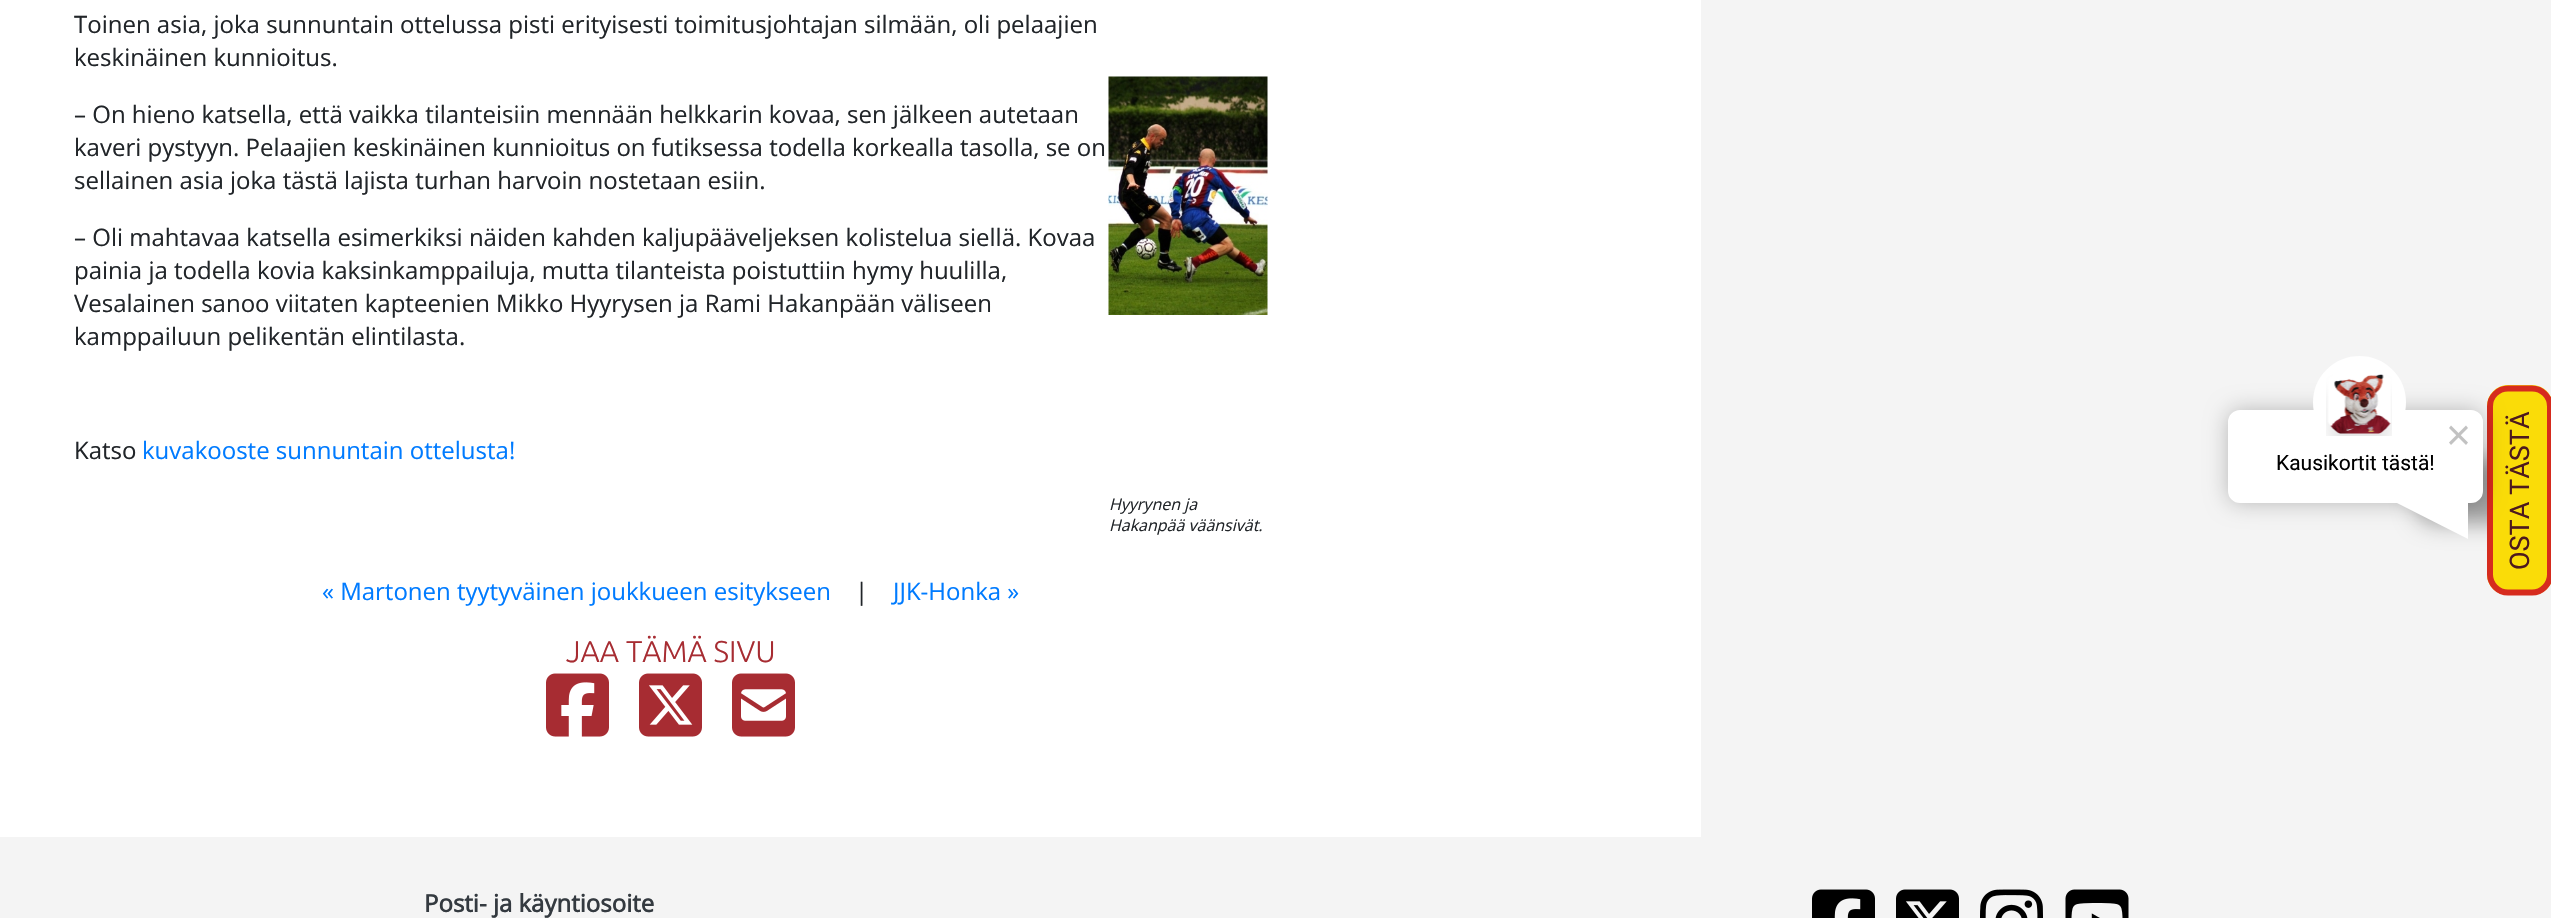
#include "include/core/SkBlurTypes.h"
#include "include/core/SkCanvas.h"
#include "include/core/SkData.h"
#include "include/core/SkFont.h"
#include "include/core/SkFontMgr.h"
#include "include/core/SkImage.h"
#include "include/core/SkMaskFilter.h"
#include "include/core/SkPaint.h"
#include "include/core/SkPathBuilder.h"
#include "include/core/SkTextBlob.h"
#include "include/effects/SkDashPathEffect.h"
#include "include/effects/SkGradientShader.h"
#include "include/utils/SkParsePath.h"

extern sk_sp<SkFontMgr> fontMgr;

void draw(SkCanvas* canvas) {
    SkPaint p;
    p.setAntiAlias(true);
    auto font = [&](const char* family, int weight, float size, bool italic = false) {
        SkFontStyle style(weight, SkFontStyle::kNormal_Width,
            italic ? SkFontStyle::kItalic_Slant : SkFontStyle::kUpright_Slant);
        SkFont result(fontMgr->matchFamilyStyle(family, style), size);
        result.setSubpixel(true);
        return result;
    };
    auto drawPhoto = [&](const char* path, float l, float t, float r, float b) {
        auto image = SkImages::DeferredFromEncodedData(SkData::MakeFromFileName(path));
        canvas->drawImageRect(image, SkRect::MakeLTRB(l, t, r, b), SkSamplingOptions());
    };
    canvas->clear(0xFFFFFFFF);
    auto font1 = font("Open Sans", 400, 24);
    p.setColor(0xFF212529);
    {
        const struct { const char* s; float x, y; } items[] = {
            {"Toinen asia, joka sunnuntain ottelussa pisti erityisesti toimitusjohtajan silmään, oli pelaajien", 74, 33},
            {"keskinäinen kunnioitus.", 74, 66},
            {"– On hieno katsella, että vaikka tilanteisiin mennään helkkarin kovaa, sen jälkeen autetaan", 74, 123},
            {"kaveri pystyyn. Pelaajien keskinäinen kunnioitus on futiksessa todella korkealla tasolla, se on", 74, 156},
            {"sellainen asia joka tästä lajista turhan harvoin nostetaan esiin.", 74, 189},
            {"– Oli mahtavaa katsella esimerkiksi näiden kahden kaljupääveljeksen kolistelua siellä. Kovaa", 74, 246},
            {"painia ja todella kovia kaksinkamppailuja, mutta tilanteista poistuttiin hymy huulilla,", 74, 279},
            {"Vesalainen sanoo viitaten kapteenien Mikko Hyyrysen ja Rami Hakanpään väliseen", 74, 312},
            {"kamppailuun pelikentän elintilasta.", 74, 345},
            {"Katso", 74, 459},
        };
        for (auto [s, x, y] : items) {
            canvas->drawString(s, x, y, font1, p);
        }
    }
    p.setColor(0xFF007BFF);
    canvas->drawString("kuvakooste sunnuntain ottelusta!", 142, 459, font1, p);
    drawPhoto("media/1.png", 1108, 76, 1268, 315);
    auto font2 = font("Open Sans", 400, 16, true);
    p.setColor(0xFF212529);
    canvas->drawString("Hyyrynen ja", 1109, 510, font2, p);
    canvas->drawString("Hakanpää väänsivät.", 1109, 531, font2, p);
    p.setColor(0xFF007BFF);
    canvas->drawString("« Martonen tyytyväinen joukkueen esitykseen", 322, 600, font1, p);
    p.setColor(0xFF212529);
    canvas->drawString("|", 855, 600, font1, p);
    p.setColor(0xFF007BFF);
    canvas->drawString("JJK-Honka »", 893, 600, font1, p);
    auto font3 = font("Ubuntu", 300, 30);
    p.setColor(0xFFA72C32);
    canvas->drawString("JAA TÄMÄ SIVU", 566, 662, font3, p);
    drawPhoto("media/2.png", 546, 673, 609, 737);
    drawPhoto("media/3.png", 639, 673, 702, 737);
    drawPhoto("media/4.png", 732, 673, 795, 737);
    p.setColor(0xFFF4F4F4);
    canvas->drawRect(SkRect::MakeLTRB(1701, 0, 2551, 837), p);
    p.setColor(0x59000000);
    p.setMaskFilter(SkMaskFilter::MakeBlur(kNormal_SkBlurStyle, 11));
    canvas->drawRoundRect(SkRect::MakeLTRB(2415, 458, 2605, 524), 21, 21, p);
    p.setMaskFilter(nullptr);
    p.setColor(0xFFFADC08);
    canvas->drawPath(SkPathBuilder().moveTo(2487, 574).lineTo(2487, 406).cubicTo(2487, 395, 2496, 385, 2508, 385).lineTo(2532, 385).cubicTo(2544, 385, 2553, 395, 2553, 406).lineTo(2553, 574).cubicTo(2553, 586, 2544, 595, 2532, 595).lineTo(2508, 595).cubicTo(2496, 595, 2487, 586, 2487, 574).close().detach(), p);
    p.setStyle(SkPaint::kStroke_Style);
    p.setStrokeWidth(6);
    p.setColor(0xFFD62B1E);
    canvas->drawPath(SkPathBuilder().moveTo(2490, 574.5f).lineTo(2490, 406.5f).cubicTo(2490, 396.5f, 2498, 388.5f, 2508, 388.5f).lineTo(2532, 388.5f).cubicTo(2542, 388.5f, 2550, 396.5f, 2550, 406.5f).lineTo(2550, 574.5f).cubicTo(2550, 584, 2542, 592.5f, 2532, 592.5f).lineTo(2508, 592.5f).cubicTo(2498, 592.5f, 2490, 584, 2490, 574.5f).close().detach(), p);
    p.setStyle(SkPaint::kFill_Style);
    p.setColor(0x40000000);
    p.setMaskFilter(SkMaskFilter::MakeBlur(kNormal_SkBlurStyle, 11));
    canvas->drawRoundRect(SkRect::MakeLTRB(2228, 410, 2483, 503), 12, 12, p);
    p.setMaskFilter(nullptr);
    p.setColor(0xFFFFFFFF);
    canvas->drawRoundRect(SkRect::MakeLTRB(2229, 411, 2482, 502), 11, 11, p);
    p.setStyle(SkPaint::kStroke_Style);
    p.setStrokeWidth(2);
    canvas->drawRoundRect(SkRect::MakeLTRB(2229, 411, 2482, 502), 11, 11, p);
    p.setStyle(SkPaint::kFill_Style);
    canvas->drawCircle(2359.5f, 402.5f, 42, p);
    p.setStyle(SkPaint::kStroke_Style);
    p.setStrokeWidth(9);
    canvas->drawCircle(2359.5f, 402.5f, 42, p);
    drawPhoto("media/5.png", 2326, 374, 2392, 436);
    p.setStyle(SkPaint::kFill_Style);
    p.setColor(0xFFC2C2C2);
    canvas->drawPath(SkPathBuilder().moveTo(2466, 425.5f).lineTo(2468, 428).lineTo(2451, 445).lineTo(2449, 442.5f).close().detach(), p);
    canvas->drawPath(SkPathBuilder().moveTo(2449, 428).lineTo(2451, 425.5f).lineTo(2468, 442.5f).lineTo(2466, 445).close().detach(), p);
    auto font4 = font("Roboto", 400, 21);
    p.setColor(0xFF000000);
    canvas->drawString("Kausikortit tästä!", 2276, 470, font4, p);
    p.setColor(0xFFFFFFFF);
    canvas->drawPath(SkPathBuilder().moveTo(2393, 501).lineTo(2468, 464).lineTo(2468, 539).close().detach(), p);
    auto font5 = font("Roboto", 400, 27);
    p.setColor(0xFF4D191E);
    canvas->save();
    canvas->rotate(-90, 2529, 570);
    canvas->drawString("OSTA TÄSTÄ", 2529, 570, font5, p);
    canvas->restore();
    p.setColor(0xFFF4F4F4);
    canvas->drawRect(SkRect::MakeLTRB(0, 837, 2551, 918), p);
    auto font6 = font("Open Sans", 700, 24);
    p.setColor(0xFF343A40);
    canvas->drawString("Posti- ja käyntiosoite", 424, 912, font6, p);
    drawPhoto("media/6.png", 1812, 889, 1875, 918);
    drawPhoto("media/7.png", 1896, 889, 1959, 918);
    drawPhoto("media/8.png", 1980, 889, 2043, 918);
    drawPhoto("media/9.png", 2065, 889, 2129, 918);
}
